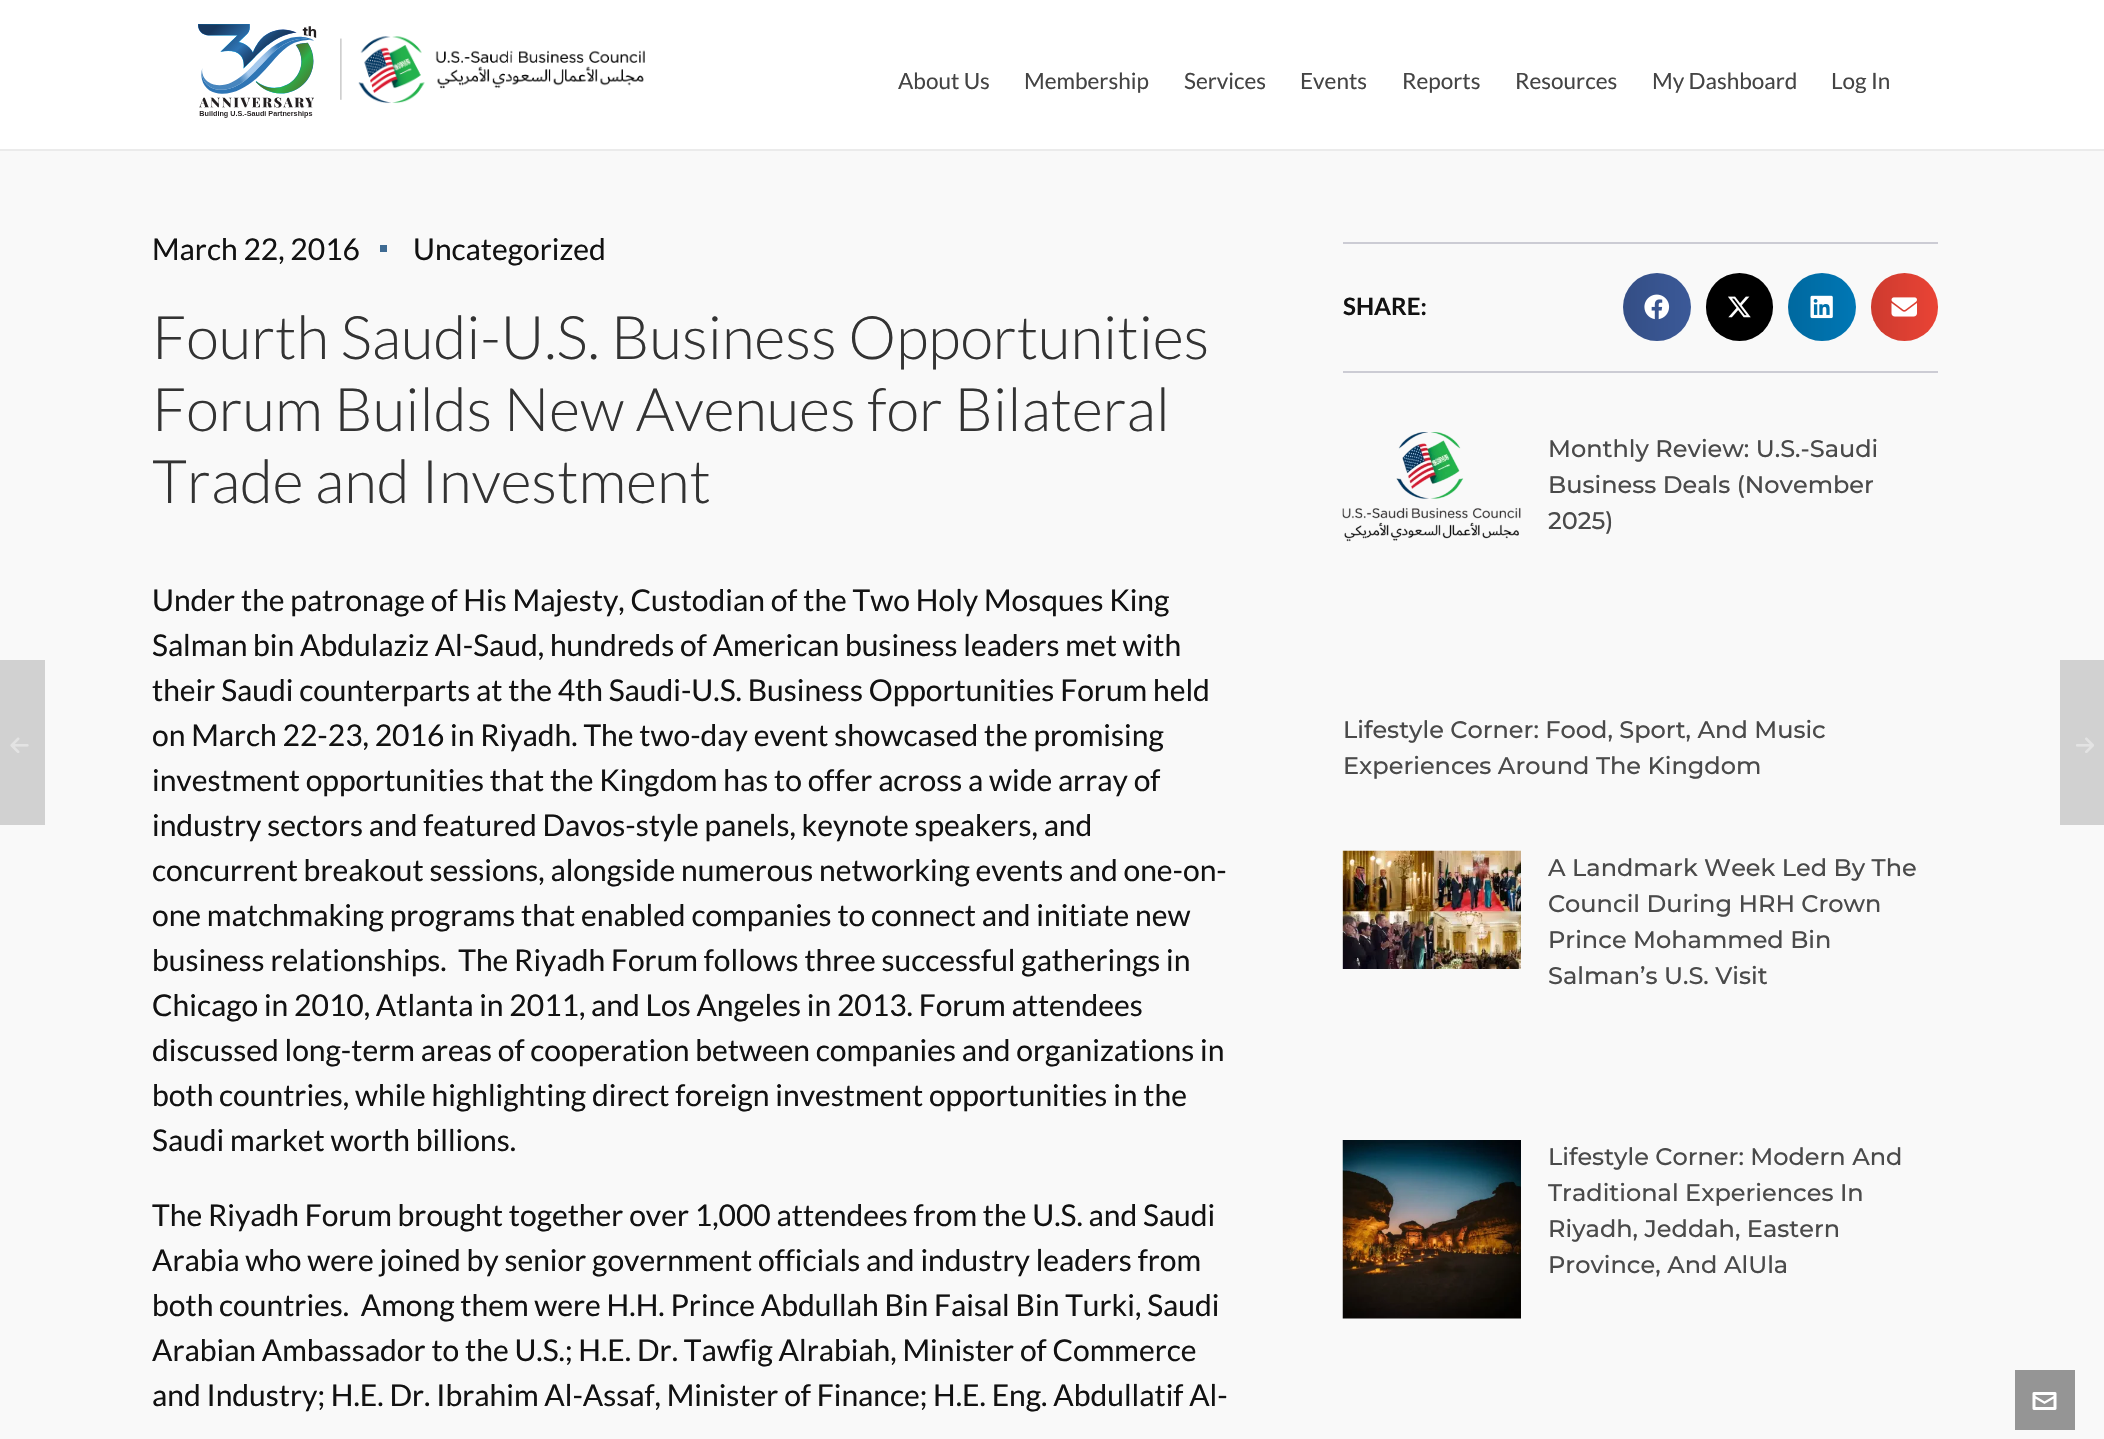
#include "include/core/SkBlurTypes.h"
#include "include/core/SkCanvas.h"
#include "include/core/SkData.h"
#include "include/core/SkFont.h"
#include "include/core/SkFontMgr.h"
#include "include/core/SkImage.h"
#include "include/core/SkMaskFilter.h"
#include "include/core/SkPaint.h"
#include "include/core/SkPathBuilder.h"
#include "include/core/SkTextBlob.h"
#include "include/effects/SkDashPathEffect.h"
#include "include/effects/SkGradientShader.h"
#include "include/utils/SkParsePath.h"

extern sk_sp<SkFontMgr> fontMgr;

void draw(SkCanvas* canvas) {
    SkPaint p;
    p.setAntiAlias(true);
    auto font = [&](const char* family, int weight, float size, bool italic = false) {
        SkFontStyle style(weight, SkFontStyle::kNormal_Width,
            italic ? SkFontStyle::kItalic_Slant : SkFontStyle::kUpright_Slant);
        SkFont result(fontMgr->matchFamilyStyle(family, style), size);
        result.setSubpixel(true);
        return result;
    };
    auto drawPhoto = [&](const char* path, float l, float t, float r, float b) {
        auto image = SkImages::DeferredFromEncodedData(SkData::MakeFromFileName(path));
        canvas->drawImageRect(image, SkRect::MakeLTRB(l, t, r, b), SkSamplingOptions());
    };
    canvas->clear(0xFFF9F9F9);
    p.setColor(0xFFFFFFFF);
    canvas->drawRect(SkRect::MakeLTRB(0, 0, 2104, 149), p);
    p.setColor(0xFFEBEBEB);
    canvas->drawRect(SkRect::MakeLTRB(0, 149, 2104, 151), p);
    drawPhoto("media/1.png", 198, 24, 645, 118);
    auto font1 = font("Lato", 400, 22.5f);
    p.setColor(0xFF444444);
    {
        const struct { const char* s; float x, y; } items[] = {
            {"About Us", 898, 89},
            {"Membership", 1024, 89},
            {"Services", 1184, 89},
            {"Events", 1300, 89},
            {"Reports", 1402, 89},
            {"Resources", 1515, 89},
            {"My Dashboard", 1652, 89},
            {"Log In", 1831, 89},
        };
        for (auto [s, x, y] : items) {
            canvas->drawString(s, x, y, font1, p);
        }
    }
    auto font2 = font("Lato", 400, 30);
    p.setColor(0xFF121212);
    canvas->drawString("March 22, 2016", 152, 260, font2, p);
    p.setColor(0xFF3F6B93);
    canvas->drawRect(SkRect::MakeLTRB(380, 245, 387, 252), p);
    p.setColor(0xFF121212);
    canvas->drawString("Uncategorized", 413, 260, font2, p);
    auto font3 = font("Lato", 300, 60);
    p.setColor(0xFF333333);
    {
        const struct { const char* s; float x, y; } items[] = {
            {"Fourth Saudi-U.S. Business Opportunities", 152, 359},
            {"Forum Builds New Avenues for Bilateral", 152, 431},
            {"Trade and Investment", 152, 503},
        };
        for (auto [s, x, y] : items) {
            canvas->drawString(s, x, y, font3, p);
        }
    }
    p.setColor(0xFF121212);
    {
        const struct { const char* s; float x, y; } items[] = {
            {"Under the patronage of His Majesty, Custodian of the Two Holy Mosques King", 152, 611},
            {"Salman bin Abdulaziz Al-Saud, hundreds of American business leaders met with", 152, 656},
            {"their Saudi counterparts at the 4th Saudi-U.S. Business Opportunities Forum held", 152, 701},
            {"on March 22-23, 2016 in Riyadh. The two-day event showcased the promising", 152, 746},
            {"investment opportunities that the Kingdom has to offer across a wide array of", 152, 791},
            {"industry sectors and featured Davos-style panels, keynote speakers, and", 152, 836},
            {"concurrent breakout sessions, alongside numerous networking events and one-on-", 152, 881},
            {"one matchmaking programs that enabled companies to connect and initiate new", 152, 926},
            {"business relationships.  The Riyadh Forum follows three successful gatherings in", 152, 971},
            {"Chicago in 2010, Atlanta in 2011, and Los Angeles in 2013. Forum attendees", 152, 1016},
            {"discussed long-term areas of cooperation between companies and organizations in", 152, 1061},
            {"both countries, while highlighting direct foreign investment opportunities in the", 152, 1106},
            {"Saudi market worth billions.", 152, 1151},
            {"The Riyadh Forum brought together over 1,000 attendees from the U.S. and Saudi", 152, 1226},
            {"Arabia who were joined by senior government officials and industry leaders from", 152, 1271},
            {"both countries.  Among them were H.H. Prince Abdullah Bin Faisal Bin Turki, Saudi", 152, 1316},
            {"Arabian Ambassador to the U.S.; H.E. Dr. Tawfig Alrabiah, Minister of Commerce", 152, 1361},
            {"and Industry; H.E. Dr. Ibrahim Al-Assaf, Minister of Finance; H.E. Eng. Abdullatif Al-", 152, 1406},
        };
        for (auto [s, x, y] : items) {
            canvas->drawString(s, x, y, font2, p);
        }
    }
    p.setColor(0xFFCCCCD4);
    canvas->drawRect(SkRect::MakeLTRB(1343, 242, 1938, 244), p);
    canvas->drawRect(SkRect::MakeLTRB(1343, 371, 1938, 373), p);
    auto font4 = font("Lato", 700, 24);
    p.setColor(0xFF121212);
    canvas->drawString("SHARE:", 1343, 315, font4, p);
    p.setColor(0xFF3B5998);
    canvas->drawCircle(1657, 307, 34, p);
    {
        const SkColor colors[] = {0x1F000000, 0x00000000};
        const float stops[] = {0, 1};
        const SkPoint ends[] = {{1623, 307}, {1691, 307}};
        p.setShader(SkGradientShader::MakeLinear(ends, colors, stops, 2, SkTileMode::kClamp));
        p.setAlpha(255);
    }
    canvas->drawCircle(1657, 307, 34, p);
    drawPhoto("media/2.png", 1644, 294, 1670, 320);
    p.setShader(nullptr);
    p.setColor(0xFF000000);
    canvas->drawRoundRect(SkRect::MakeLTRB(1706, 273, 1773, 341), 33.5f, 33.5f, p);
    {
        const SkColor colors[] = {0x1F000000, 0x00000000};
        const float stops[] = {0, 1};
        const SkPoint ends[] = {{1706, 307}, {1773, 307}};
        p.setShader(SkGradientShader::MakeLinear(ends, colors, stops, 2, SkTileMode::kClamp));
        p.setAlpha(255);
    }
    canvas->drawRoundRect(SkRect::MakeLTRB(1706, 273, 1773, 341), 33.5f, 33.5f, p);
    drawPhoto("media/3.png", 1728, 296, 1751, 318);
    p.setShader(nullptr);
    p.setColor(0xFF0077B5);
    canvas->drawCircle(1822, 307, 34, p);
    {
        const SkColor colors[] = {0x1F000000, 0x00000000};
        const float stops[] = {0, 1};
        const SkPoint ends[] = {{1788, 307}, {1856, 307}};
        p.setShader(SkGradientShader::MakeLinear(ends, colors, stops, 2, SkTileMode::kClamp));
        p.setAlpha(255);
    }
    canvas->drawCircle(1822, 307, 34, p);
    drawPhoto("media/4.png", 1810, 295, 1833, 319);
    p.setShader(nullptr);
    p.setColor(0xFFEA4335);
    canvas->drawRoundRect(SkRect::MakeLTRB(1871, 273, 1938, 341), 33.5f, 33.5f, p);
    {
        const SkColor colors[] = {0x1F000000, 0x00000000};
        const float stops[] = {0, 1};
        const SkPoint ends[] = {{1871, 307}, {1938, 307}};
        p.setShader(SkGradientShader::MakeLinear(ends, colors, stops, 2, SkTileMode::kClamp));
        p.setAlpha(255);
    }
    canvas->drawRoundRect(SkRect::MakeLTRB(1871, 273, 1938, 341), 33.5f, 33.5f, p);
    drawPhoto("media/5.png", 1891, 297, 1917, 317);
    drawPhoto("media/6.png", 1342, 432, 1521, 542);
    auto font5 = font("Montserrat", 500, 24);
    p.setShader(nullptr);
    p.setColor(0xFF4A4A4A);
    {
        const struct { const char* s; float x, y; } items[] = {
            {"Monthly Review: U.S.-Saudi", 1548, 457},
            {"Business Deals (November", 1548, 493},
            {"2025)", 1548, 529},
            {"Lifestyle Corner: Food, Sport, And Music", 1343, 738},
            {"Experiences Around The Kingdom", 1343, 774},
        };
        for (auto [s, x, y] : items) {
            canvas->drawString(s, x, y, font5, p);
        }
    }
    drawPhoto("media/7.png", 1342, 850, 1521, 969);
    {
        const struct { const char* s; float x, y; } items[] = {
            {"A Landmark Week Led By The", 1548, 876},
            {"Council During HRH Crown", 1548, 912},
            {"Prince Mohammed Bin", 1548, 948},
            {"Salman’s U.S. Visit", 1548, 984},
        };
        for (auto [s, x, y] : items) {
            canvas->drawString(s, x, y, font5, p);
        }
    }
    drawPhoto("media/8.png", 1342, 1140, 1521, 1319);
    {
        const struct { const char* s; float x, y; } items[] = {
            {"Lifestyle Corner: Modern And", 1548, 1165},
            {"Traditional Experiences In", 1548, 1201},
            {"Riyadh, Jeddah, Eastern", 1548, 1237},
            {"Province, And AlUla", 1548, 1273},
        };
        for (auto [s, x, y] : items) {
            canvas->drawString(s, x, y, font5, p);
        }
    }
    p.setColor(0xFFD1D1D1);
    canvas->drawRect(SkRect::MakeLTRB(0, 660, 45, 825), p);
    drawPhoto("media/9.png", 10, 737, 29, 753);
    canvas->drawRect(SkRect::MakeLTRB(2060, 660, 2104, 825), p);
    drawPhoto("media/10.png", 2076, 737, 2094, 753);
    p.setColor(0xFF959595);
    canvas->drawRect(SkRect::MakeLTRB(2015, 1370, 2075, 1430), p);
    drawPhoto("media/11.png", 2032, 1392, 2057, 1410);
}
